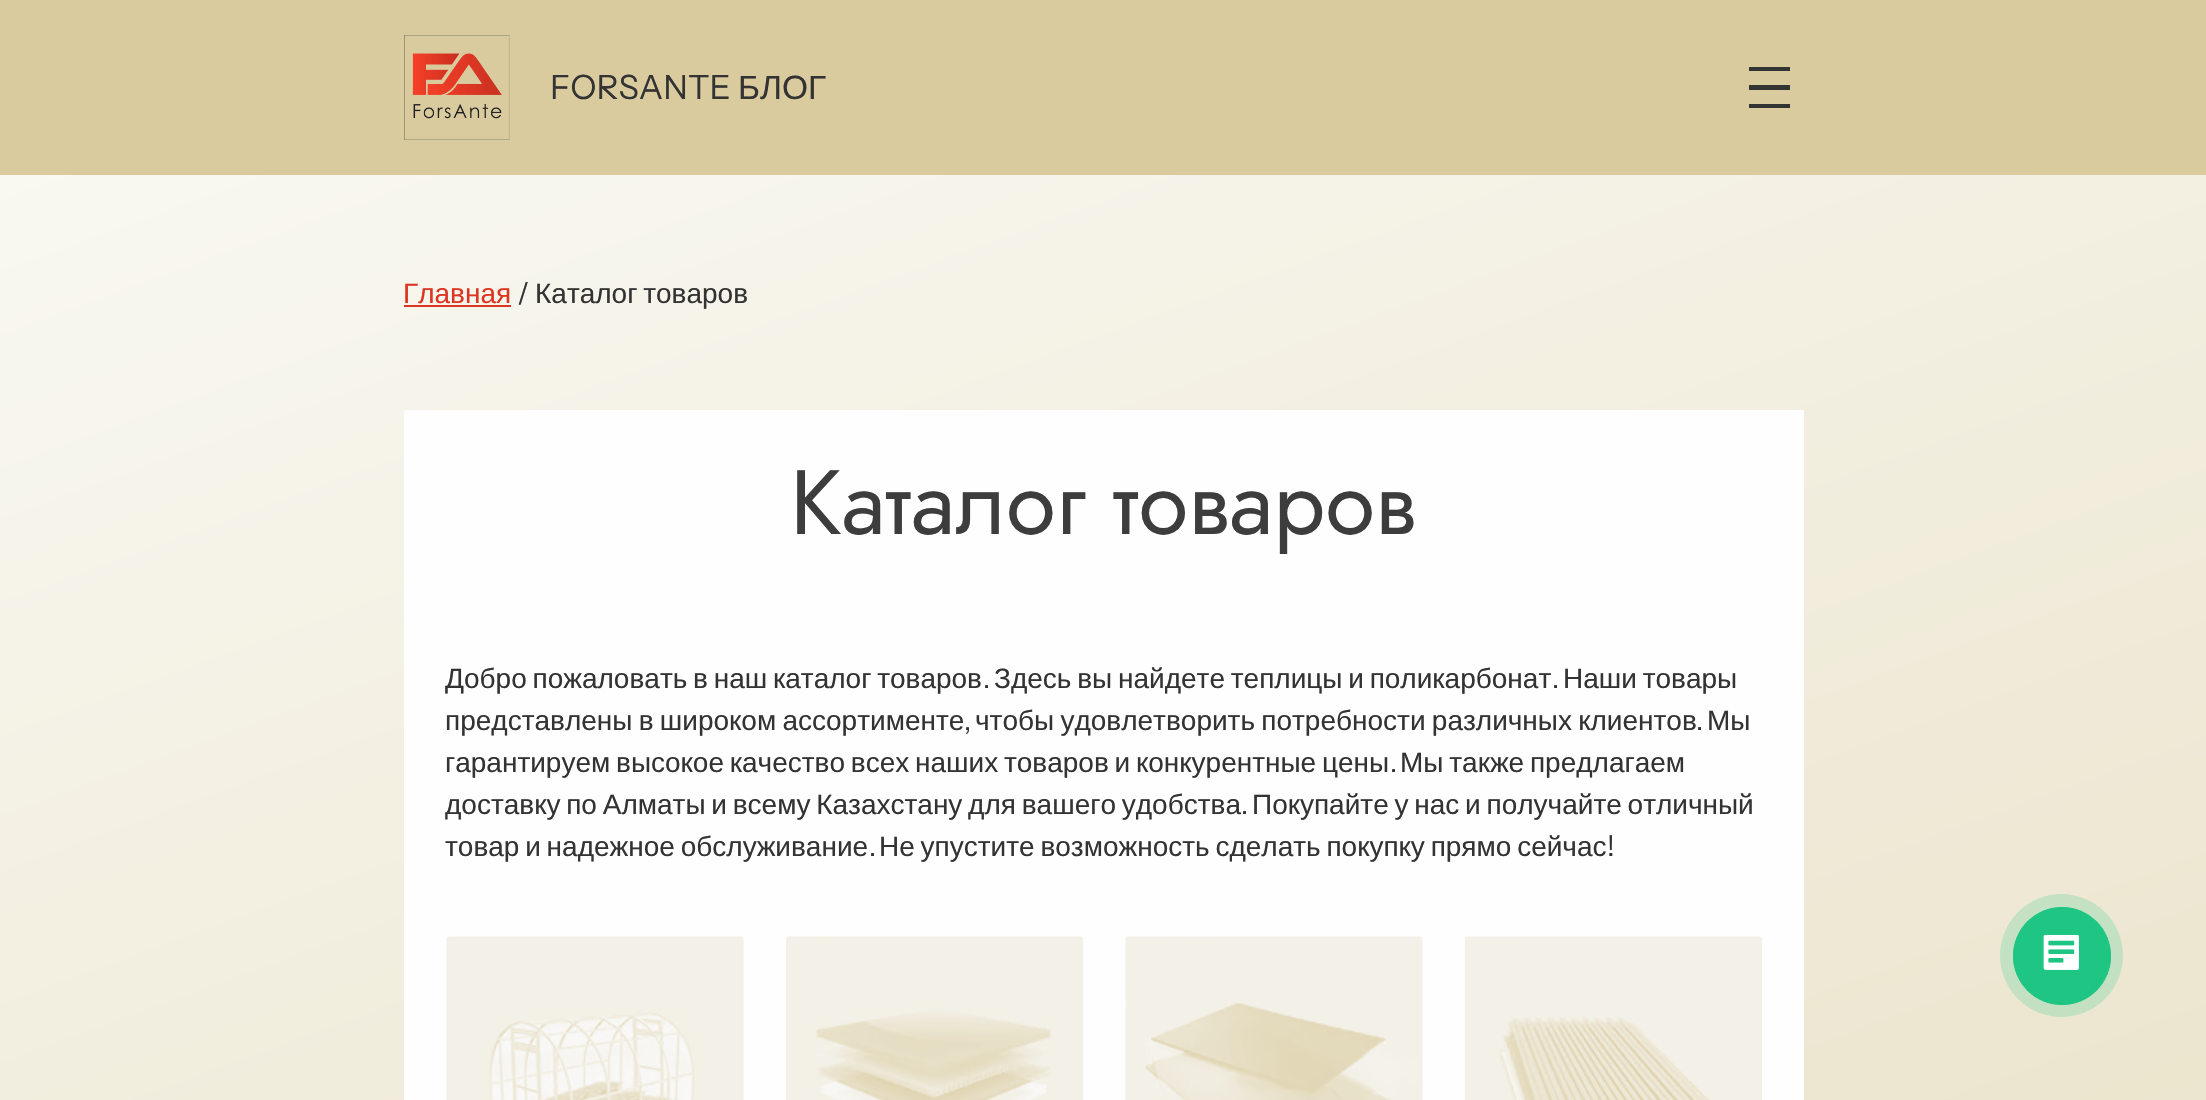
#include "include/core/SkBlurTypes.h"
#include "include/core/SkCanvas.h"
#include "include/core/SkData.h"
#include "include/core/SkFont.h"
#include "include/core/SkFontMgr.h"
#include "include/core/SkImage.h"
#include "include/core/SkMaskFilter.h"
#include "include/core/SkPaint.h"
#include "include/core/SkPathBuilder.h"
#include "include/core/SkTextBlob.h"
#include "include/effects/SkDashPathEffect.h"
#include "include/effects/SkGradientShader.h"
#include "include/utils/SkParsePath.h"

extern sk_sp<SkFontMgr> fontMgr;

void draw(SkCanvas* canvas) {
    SkPaint p;
    p.setAntiAlias(true);
    auto font = [&](const char* family, int weight, float size, bool italic = false) {
        SkFontStyle style(weight, SkFontStyle::kNormal_Width,
            italic ? SkFontStyle::kItalic_Slant : SkFontStyle::kUpright_Slant);
        SkFont result(fontMgr->matchFamilyStyle(family, style), size);
        result.setSubpixel(true);
        return result;
    };
    auto drawTracked = [&](const char* s, float x, float y, const SkFont& font, const SkPaint& ink, float letter, float word) {
        std::vector<SkGlyphID> glyphs(font.countText(s, strlen(s), SkTextEncoding::kUTF8));
        std::vector<float> xs(glyphs.size());
        font.textToGlyphs(s, strlen(s), SkTextEncoding::kUTF8, glyphs);
        font.getXPos(glyphs, xs, x);
        float extra = 0;
        for (size_t i = 0; i < glyphs.size(); i++) {
            xs[i] += extra;
            extra += letter + word * (glyphs[i] == font.unicharToGlyph(' '));
        }
        canvas->drawTextBlob(SkTextBlob::MakeFromPosHGlyphs(glyphs, xs, y, font), 0, 0, ink);
    };
    auto drawPhoto = [&](const char* path, float l, float t, float r, float b) {
        auto image = SkImages::DeferredFromEncodedData(SkData::MakeFromFileName(path));
        canvas->drawImageRect(image, SkRect::MakeLTRB(l, t, r, b), SkSamplingOptions());
    };
    canvas->clear(0xFFFFFFFF);
    {
        const SkColor colors[] = {0xFFFAFAF5, 0xFFE2D7B4};
        const float stops[] = {0, 1};
        const SkPoint ends[] = {{587, -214}, {1620, 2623}};
        p.setShader(SkGradientShader::MakeLinear(ends, colors, stops, 2, SkTileMode::kClamp));
        p.setAlpha(255);
    }
    canvas->drawRect(SkRect::MakeLTRB(0, 175, 2206, 1100), p);
    p.setShader(nullptr);
    p.setColor(0xFFD9CB9E);
    canvas->drawRect(SkRect::MakeLTRB(0, 0, 2206, 175), p);
    drawPhoto("media/1.png", 404, 35, 510, 140);
    auto font1 = font("Instrument Sans", 400, 33.5f);
    p.setColor(0xFF333333);
    canvas->drawString("FORSANTE", 550, 99, font1, p);
    auto font2 = font("Liberation Sans", 400, 33.5f);
    canvas->drawString("БЛОГ", 738, 99, font2, p);
    canvas->drawPath(SkPathBuilder().moveTo(1749, 67).lineTo(1749, 71).lineTo(1790, 71).lineTo(1790, 67).close().moveTo(1749, 90).lineTo(1790, 90).lineTo(1790, 85).lineTo(1749, 85).close().moveTo(1749, 108).lineTo(1790, 108).lineTo(1790, 104).lineTo(1749, 104).close().detach(), p);
    auto font3 = font("Liberation Sans", 400, 28);
    p.setColor(0xFFDC3522);
    canvas->drawString("Главная", 403, 303, font3, p);
    canvas->drawRect(SkRect::MakeLTRB(404, 305, 511, 307), p);
    auto font4 = font("Instrument Sans", 400, 28);
    p.setColor(0xFF333333);
    canvas->drawString("/", 517, 303, font4, p);
    drawTracked("Каталог товаров", 535, 303, font3, p, 0, -2);
    p.setColor(0xFFFEFEFE);
    canvas->drawRect(SkRect::MakeLTRB(404, 410, 1804, 1100), p);
    auto font5 = font("Jost", 400, 91);
    p.setColor(0xFF3D3D3D);
    canvas->drawString("Каталог товаров", 790, 534, font5, p);
    p.setColor(0xFF333333);
    drawTracked("Добро пожаловать в наш каталог товаров", 445, 688, font3, p, 0, -2);
    canvas->drawString(".", 983, 688, font4, p);
    drawTracked("Здесь вы найдете теплицы и поликарбонат", 994, 688, font3, p, 0, -2);
    canvas->drawString(".", 1552, 688, font4, p);
    drawTracked("Наши товары", 1563, 688, font3, p, 0, -2);
    drawTracked("представлены в широком ассортименте", 445, 730, font3, p, 0, -1.5f);
    canvas->drawString(",", 964, 730, font4, p);
    drawTracked("чтобы удовлетворить потребности различных клиентов", 975, 730, font3, p, 0, -1.5f);
    canvas->drawString(".", 1696, 730, font4, p);
    canvas->drawString("Мы", 1707, 730, font3, p);
    drawTracked("гарантируем высокое качество всех наших товаров и конкурентные цены", 445, 772, font3, p, 0, -2);
    canvas->drawString(".", 1390, 772, font4, p);
    drawTracked("Мы также предлагаем", 1400, 772, font3, p, 0, -2);
    drawTracked("доставку по Алматы и всему Казахстану для вашего удобства", 445, 814, font3, p, 0, -2);
    canvas->drawString(".", 1241, 814, font4, p);
    drawTracked("Покупайте у нас и получайте отличный", 1252, 814, font3, p, 0, -2);
    drawTracked("товар и надежное обслуживание", 445, 856, font3, p, 0, -2);
    canvas->drawString(".", 869, 856, font4, p);
    drawTracked("Не упустите возможность сделать покупку прямо сейчас", 879, 856, font3, p, 0, -2);
    canvas->drawString("!", 1607, 856, font4, p);
    drawPhoto("media/2.png", 446, 936, 744, 1100);
    drawPhoto("media/3.png", 786, 936, 1083, 1100);
    drawPhoto("media/4.png", 1125, 936, 1423, 1100);
    drawPhoto("media/5.png", 1465, 936, 1762, 1100);
    p.setColor(0x331FC683);
    canvas->drawCircle(2061.5f, 955.5f, 61.5f, p);
    p.setStyle(SkPaint::kStroke_Style);
    p.setStrokeWidth(1);
    p.setColor(0xFF1FC683);
    canvas->drawCircle(2062, 956, 48.5f, p);
    p.setStyle(SkPaint::kFill_Style);
    canvas->drawCircle(2062, 956, 49, p);
    drawPhoto("media/6.png", 2043, 935, 2079, 970);
}
